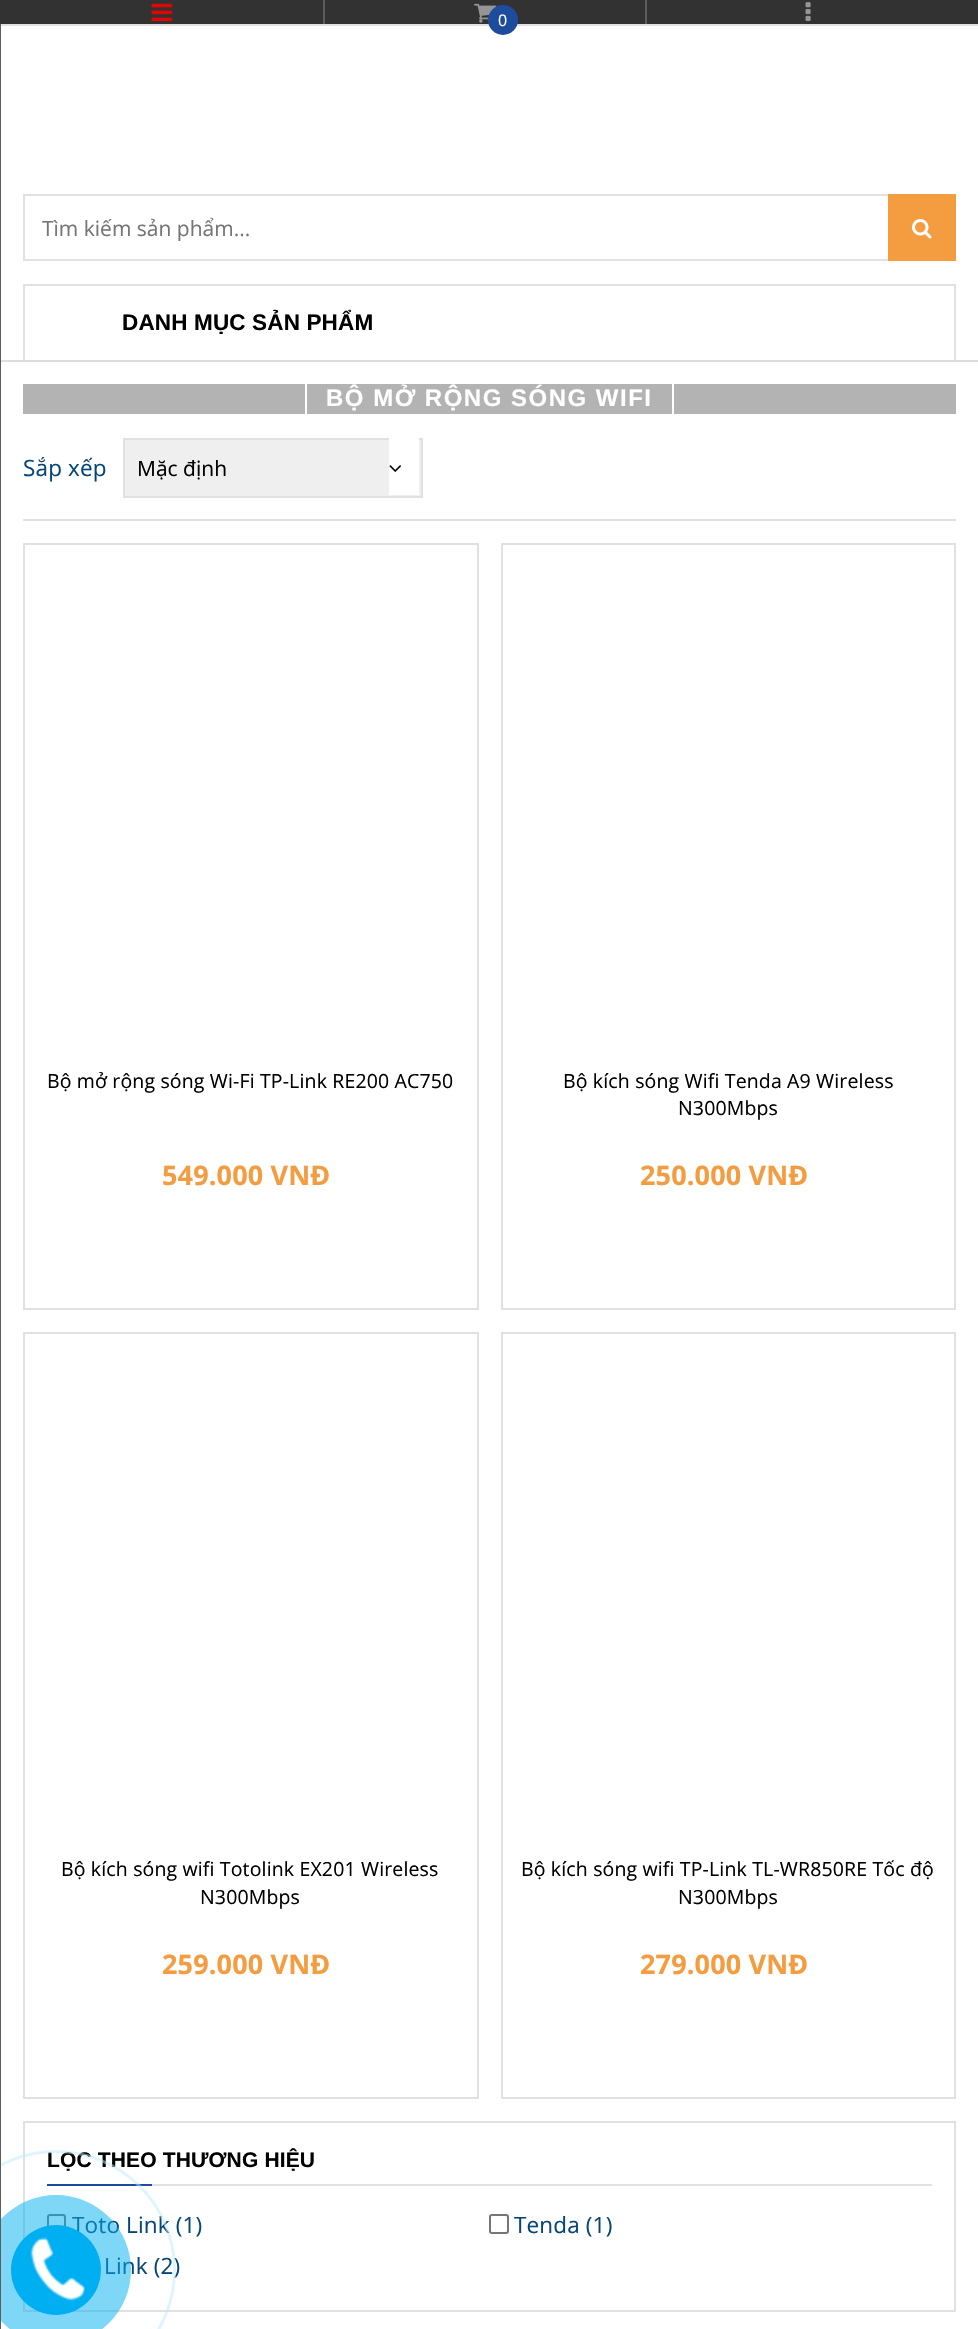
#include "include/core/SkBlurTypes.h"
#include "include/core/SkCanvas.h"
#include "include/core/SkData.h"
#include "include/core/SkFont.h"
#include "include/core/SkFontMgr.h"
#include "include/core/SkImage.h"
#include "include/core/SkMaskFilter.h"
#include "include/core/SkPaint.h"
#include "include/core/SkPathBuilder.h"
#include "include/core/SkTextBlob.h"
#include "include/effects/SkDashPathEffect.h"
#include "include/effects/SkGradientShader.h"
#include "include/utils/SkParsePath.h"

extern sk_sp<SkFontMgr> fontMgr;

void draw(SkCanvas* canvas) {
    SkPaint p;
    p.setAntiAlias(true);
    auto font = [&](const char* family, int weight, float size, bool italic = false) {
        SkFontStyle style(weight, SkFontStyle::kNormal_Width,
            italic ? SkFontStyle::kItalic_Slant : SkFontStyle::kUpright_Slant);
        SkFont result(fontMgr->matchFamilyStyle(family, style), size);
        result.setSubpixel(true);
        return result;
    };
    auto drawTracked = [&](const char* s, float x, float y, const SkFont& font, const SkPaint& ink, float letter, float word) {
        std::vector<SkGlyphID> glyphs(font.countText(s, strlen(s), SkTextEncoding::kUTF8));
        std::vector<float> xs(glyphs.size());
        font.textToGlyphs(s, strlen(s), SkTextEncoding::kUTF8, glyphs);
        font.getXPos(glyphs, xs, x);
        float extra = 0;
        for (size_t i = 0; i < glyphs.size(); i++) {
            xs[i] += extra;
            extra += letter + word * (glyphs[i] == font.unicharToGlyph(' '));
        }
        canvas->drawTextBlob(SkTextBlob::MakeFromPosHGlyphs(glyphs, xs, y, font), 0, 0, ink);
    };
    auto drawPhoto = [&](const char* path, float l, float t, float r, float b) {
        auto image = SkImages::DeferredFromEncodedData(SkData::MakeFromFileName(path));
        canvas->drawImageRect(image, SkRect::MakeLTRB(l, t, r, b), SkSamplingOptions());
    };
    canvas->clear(0xFFFFFFFF);
    p.setColor(0xFFDDDDDD);
    canvas->drawRect(SkRect::MakeLTRB(0, 360, 978, 362), p);
    p.setColor(0xFFE1E1E1);
    canvas->drawRect(SkRect::MakeLTRB(0, 24, 978, 26), p);
    p.setStyle(SkPaint::kStroke_Style);
    p.setStrokeWidth(2);
    canvas->drawRect(SkRect::MakeLTRB(24, 2122, 955, 2311), p);
    p.setStyle(SkPaint::kFill_Style);
    canvas->drawRect(SkRect::MakeLTRB(152, 2184, 932, 2186), p);
    auto font1 = font("Liberation Sans", 700, 21);
    p.setColor(0xFF000000);
    drawTracked("LỌC THEO THƯƠNG HIỆU", 47, 2167, font1, p, 0.15f, 0);
    p.setColor(0xFF1D4C9F);
    canvas->drawRect(SkRect::MakeLTRB(47, 2184, 152, 2186), p);
    p.setStyle(SkPaint::kStroke_Style);
    p.setColor(0xFF767676);
    canvas->drawRoundRect(SkRect::MakeLTRB(48, 2215, 65, 2233), 2, 2, p);
    auto font2 = font("Open Sans", 400, 22.5f);
    p.setStyle(SkPaint::kFill_Style);
    p.setColor(0xFF054677);
    drawTracked("Toto Link (1)", 72, 2233, font2, p, 0.15f, 0);
    drawTracked("Link (2)", 104, 2274, font2, p, 0.15f, 0);
    p.setStyle(SkPaint::kStroke_Style);
    p.setStrokeWidth(3);
    p.setColor(0x80BFEBFC);
    canvas->drawCircle(56, 2270, 118.5f, p);
    p.setStyle(SkPaint::kFill_Style);
    p.setColor(0x8000AFF2);
    canvas->drawCircle(56, 2270, 75, p);
    p.setColor(0xFF5D5D5D);
    canvas->drawRect(SkRect::MakeLTRB(0, 24, 1, 2329), p);
    p.setColor(0xFF323232);
    canvas->drawRect(SkRect::MakeLTRB(0, 0, 978, 24), p);
    drawPhoto("media/1.png", 151, 3, 173, 21);
    p.setColor(0xFF5D5D5D);
    canvas->drawRect(SkRect::MakeLTRB(323, 0, 325, 24), p);
    drawPhoto("media/2.png", 474, 3, 497, 23);
    p.setColor(0xFF1D4C9F);
    canvas->drawCircle(503, 20, 15, p);
    auto font3 = font("Open Sans", 400, 16);
    p.setColor(0xFFFFFFFF);
    drawTracked("0", 498, 26, font3, p, 0.15f, 0);
    p.setColor(0xFF5D5D5D);
    canvas->drawRect(SkRect::MakeLTRB(645, 0, 647, 24), p);
    drawPhoto("media/3.png", 805, 2, 811, 21);
    p.setStyle(SkPaint::kStroke_Style);
    p.setStrokeWidth(2);
    p.setColor(0xFFE1E1E1);
    canvas->drawRect(SkRect::MakeLTRB(24, 195, 955, 260), p);
    auto font4 = font("Open Sans", 400, 21);
    p.setStyle(SkPaint::kFill_Style);
    p.setColor(0xFF757575);
    canvas->drawString("Tìm kiếm sản phẩm...", 42, 236, font4, p);
    p.setColor(0xFFF39C40);
    canvas->drawRect(SkRect::MakeLTRB(888, 194, 956, 261), p);
    drawPhoto("media/4.png", 912, 219, 932, 239);
    {
        const struct { float l, t, r, b; SkColor color; } items[] = {
            {23, 284, 956, 286, 0xFFE1E1E1},
            {954, 284, 956, 360, 0xFFE1E1E1},
            {23, 284, 25, 360, 0xFFE1E1E1},
        };
        for (auto [l, t, r, b, color] : items) {
            p.setColor(color);
            canvas->drawRect(SkRect::MakeLTRB(l, t, r, b), p);
        }
    }
    auto font5 = font("Liberation Sans", 700, 22.5f);
    p.setColor(0xFF000000);
    drawTracked("DANH MỤC SẢN PHẨM", 122, 330, font5, p, 0.15f, 0);
    p.setColor(0xFFB3B3B3);
    canvas->drawRect(SkRect::MakeLTRB(23, 384, 956, 414), p);
    canvas->save();
    canvas->clipRect(SkRect::MakeLTRB(23, 384, 956, 414));
    p.setStyle(SkPaint::kStroke_Style);
    p.setColor(0xFFFFFFFF);
    canvas->drawRect(SkRect::MakeLTRB(306, 373, 673, 425), p);
    canvas->restore();
    auto font6 = font("Liberation Sans", 700, 24);
    p.setStyle(SkPaint::kFill_Style);
    drawTracked("BỘ MỞ RỘNG SÓNG WIFI", 326, 406, font6, p, 1.5f, 0);
    p.setColor(0xFFE1E1E1);
    canvas->drawRect(SkRect::MakeLTRB(23, 519, 956, 521), p);
    p.setColor(0xFF054677);
    drawTracked("Sắp xếp", 23, 476, font2, p, 0.15f, 0);
    p.setColor(0xFFEFEFEF);
    canvas->drawRect(SkRect::MakeLTRB(124, 439, 422, 497), p);
    p.setStyle(SkPaint::kStroke_Style);
    p.setColor(0xFFE1E1E1);
    canvas->drawRect(SkRect::MakeLTRB(124, 439, 422, 497), p);
    p.setStyle(SkPaint::kFill_Style);
    p.setColor(0xFF000000);
    canvas->drawString("Mặc định", 137, 476, font4, p);
    p.setColor(0xFFFFFFFF);
    canvas->drawRect(SkRect::MakeLTRB(389, 438, 419, 495), p);
    drawPhoto("media/5.png", 389, 465, 401, 472);
    {
        const struct { float l, t, r, b; SkColor color; } items[] = {
            {23, 543, 479, 545, 0xFFE1E1E1},
            {477, 543, 479, 954, 0xFFE1E1E1},
            {23, 543, 25, 954, 0xFFE1E1E1},
            {477, 954, 479, 1310, 0xFFE1E1E1},
            {23, 1308, 479, 1310, 0xFFE1E1E1},
            {23, 954, 25, 1310, 0xFFE1E1E1},
        };
        for (auto [l, t, r, b, color] : items) {
            p.setColor(color);
            canvas->drawRect(SkRect::MakeLTRB(l, t, r, b), p);
        }
    }
    auto font7 = font("Open Sans", 400, 19.5f);
    p.setColor(0xFF000000);
    drawTracked("Bộ mở rộng sóng Wi-Fi TP-Link RE200 AC750", 47, 1088, font7, p, 0.15f, 0);
    auto font8 = font("Open Sans", 700, 27);
    p.setColor(0xFFF39C40);
    drawTracked("549.000 VNĐ", 162, 1185, font8, p, 0.15f, 0);
    {
        const struct { float l, t, r, b; SkColor color; } items[] = {
            {501, 543, 956, 545, 0xFFE1E1E1},
            {954, 543, 956, 954, 0xFFE1E1E1},
            {501, 543, 503, 954, 0xFFE1E1E1},
            {954, 954, 956, 1310, 0xFFE1E1E1},
            {501, 1308, 956, 1310, 0xFFE1E1E1},
            {501, 954, 503, 1310, 0xFFE1E1E1},
        };
        for (auto [l, t, r, b, color] : items) {
            p.setColor(color);
            canvas->drawRect(SkRect::MakeLTRB(l, t, r, b), p);
        }
    }
    p.setColor(0xFF000000);
    drawTracked("Bộ kích sóng Wifi Tenda A9 Wireless", 563, 1088, font7, p, 0.15f, 0);
    drawTracked("N300Mbps", 678, 1115, font7, p, 0.15f, 0);
    p.setColor(0xFFF39C40);
    drawTracked("250.000 VNĐ", 640, 1185, font8, p, 0.15f, 0);
    {
        const struct { float l, t, r, b; SkColor color; } items[] = {
            {23, 1332, 479, 1334, 0xFFE1E1E1},
            {477, 1332, 479, 1743, 0xFFE1E1E1},
            {23, 1332, 25, 1743, 0xFFE1E1E1},
            {477, 1743, 479, 2099, 0xFFE1E1E1},
            {23, 2097, 479, 2099, 0xFFE1E1E1},
            {23, 1743, 25, 2099, 0xFFE1E1E1},
        };
        for (auto [l, t, r, b, color] : items) {
            p.setColor(color);
            canvas->drawRect(SkRect::MakeLTRB(l, t, r, b), p);
        }
    }
    p.setColor(0xFF000000);
    drawTracked("Bộ kích sóng wifi Totolink EX201 Wireless", 61, 1876, font7, p, 0.15f, 0);
    drawTracked("N300Mbps", 200, 1904, font7, p, 0.15f, 0);
    p.setColor(0xFFF39C40);
    drawTracked("259.000 VNĐ", 162, 1974, font8, p, 0.15f, 0);
    {
        const struct { float l, t, r, b; SkColor color; } items[] = {
            {501, 1332, 956, 1334, 0xFFE1E1E1},
            {954, 1332, 956, 1743, 0xFFE1E1E1},
            {501, 1332, 503, 1743, 0xFFE1E1E1},
            {954, 1743, 956, 2099, 0xFFE1E1E1},
            {501, 2097, 956, 2099, 0xFFE1E1E1},
            {501, 1743, 503, 2099, 0xFFE1E1E1},
        };
        for (auto [l, t, r, b, color] : items) {
            p.setColor(color);
            canvas->drawRect(SkRect::MakeLTRB(l, t, r, b), p);
        }
    }
    p.setColor(0xFF000000);
    drawTracked("Bộ kích sóng wifi TP-Link TL-WR850RE Tốc độ", 521, 1876, font7, p, 0.15f, 0);
    drawTracked("N300Mbps", 678, 1904, font7, p, 0.15f, 0);
    p.setColor(0xFFF39C40);
    drawTracked("279.000 VNĐ", 640, 1974, font8, p, 0.15f, 0);
    p.setStyle(SkPaint::kStroke_Style);
    p.setColor(0xFF767676);
    canvas->drawRoundRect(SkRect::MakeLTRB(490, 2215, 508, 2233), 2, 2, p);
    p.setStyle(SkPaint::kFill_Style);
    p.setColor(0xFF054677);
    drawTracked("Tenda (1)", 514, 2233, font2, p, 0.15f, 0);
    p.setColor(0xFF00AFF2);
    canvas->drawCircle(56, 2270, 45, p);
    drawPhoto("media/6.png", 30, 2237, 85, 2301);
}
